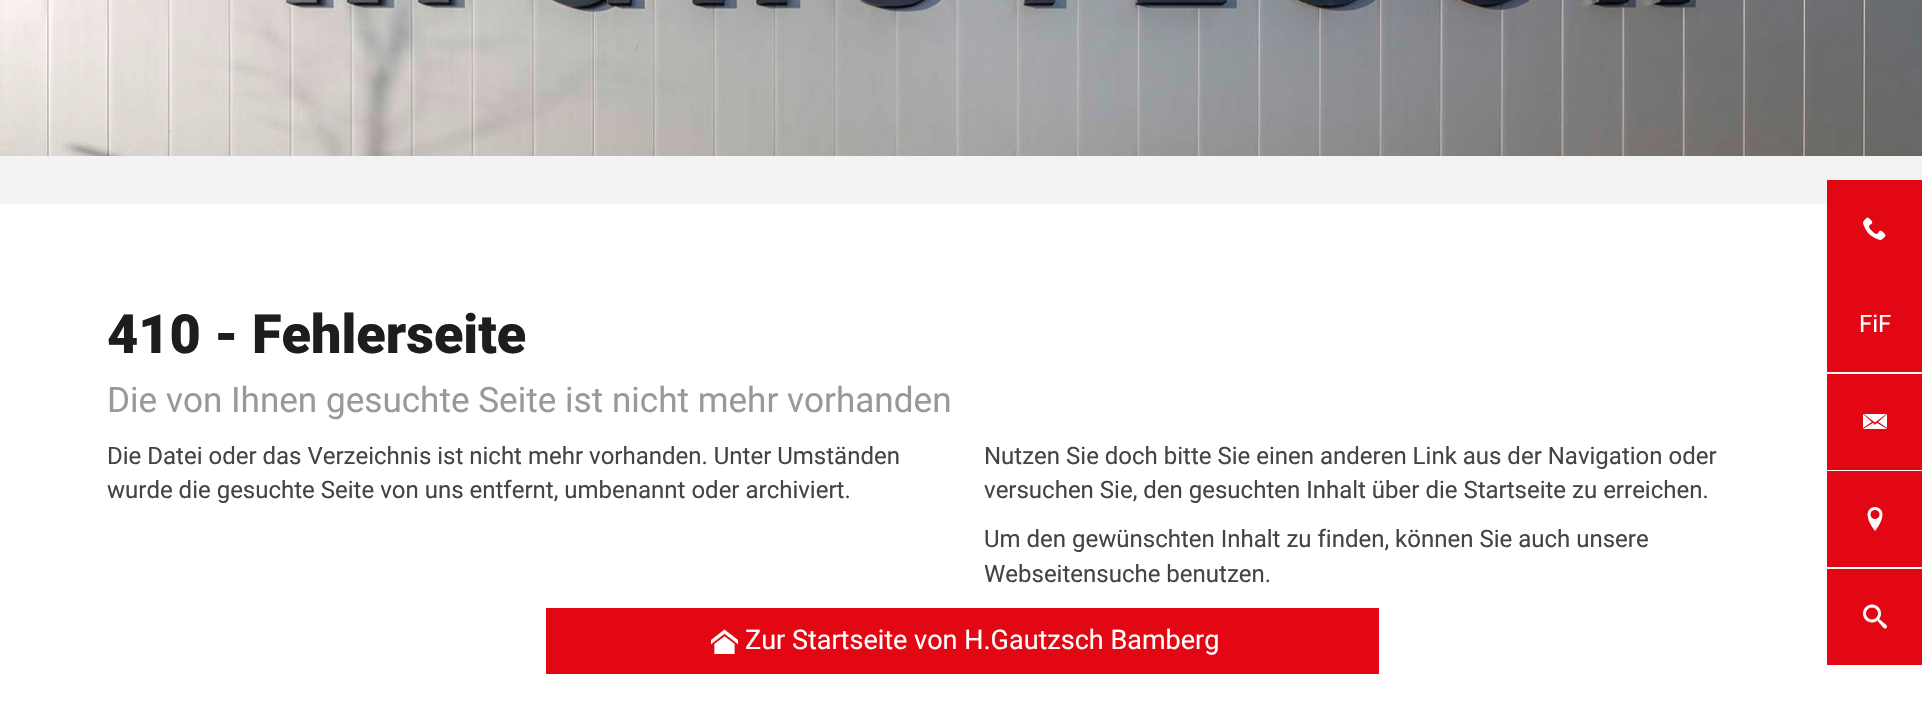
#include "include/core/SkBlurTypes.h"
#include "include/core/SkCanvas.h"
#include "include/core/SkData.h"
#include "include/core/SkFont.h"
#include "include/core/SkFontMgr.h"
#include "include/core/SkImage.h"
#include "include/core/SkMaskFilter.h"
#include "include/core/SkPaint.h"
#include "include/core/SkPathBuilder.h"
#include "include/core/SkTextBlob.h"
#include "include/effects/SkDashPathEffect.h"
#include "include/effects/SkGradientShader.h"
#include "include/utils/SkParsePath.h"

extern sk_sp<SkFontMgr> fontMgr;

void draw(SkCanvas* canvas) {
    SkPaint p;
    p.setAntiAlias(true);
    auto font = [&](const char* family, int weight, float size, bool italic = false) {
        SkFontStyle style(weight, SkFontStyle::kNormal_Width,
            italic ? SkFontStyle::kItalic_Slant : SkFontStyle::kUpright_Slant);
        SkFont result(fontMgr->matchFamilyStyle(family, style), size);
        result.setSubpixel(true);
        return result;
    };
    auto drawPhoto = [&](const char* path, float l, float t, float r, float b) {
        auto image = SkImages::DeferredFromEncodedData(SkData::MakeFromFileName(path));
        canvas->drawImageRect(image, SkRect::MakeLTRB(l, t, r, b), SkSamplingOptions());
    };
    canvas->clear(0xFFFFFFFF);
    drawPhoto("media/1.png", 0, 0, 1922, 156);
    p.setColor(0xFFF3F3F3);
    canvas->drawRect(SkRect::MakeLTRB(0, 156, 1922, 204), p);
    auto font1 = font("Roboto", 900, 54);
    p.setColor(0xFF1D1D1D);
    canvas->drawString("410 - Fehlerseite", 107, 353, font1, p);
    auto font2 = font("Roboto", 400, 35.1f);
    p.setColor(0xFF999999);
    canvas->drawString("Die von Ihnen gesuchte Seite ist nicht mehr vorhanden", 107, 412, font2, p);
    auto font3 = font("Roboto", 400, 24);
    p.setColor(0xFF444444);
    {
        const struct { const char* s; float x, y; } items[] = {
            {"Die Datei oder das Verzeichnis ist nicht mehr vorhanden. Unter Umständen", 107, 464},
            {"wurde die gesuchte Seite von uns entfernt, umbenannt oder archiviert.", 107, 498},
            {"Nutzen Sie doch bitte Sie einen anderen Link aus der Navigation oder", 984, 464},
            {"versuchen Sie, den gesuchten Inhalt über die Startseite zu erreichen.", 984, 498},
            {"Um den gewünschten Inhalt zu finden, können Sie auch unsere", 984, 547},
            {"Webseitensuche benutzen.", 984, 582},
        };
        for (auto [s, x, y] : items) {
            canvas->drawString(s, x, y, font3, p);
        }
    }
    p.setColor(0xFFE30613);
    canvas->drawRect(SkRect::MakeLTRB(546, 608, 1379, 674), p);
    drawPhoto("media/2.png", 711, 629, 738, 654);
    auto font4 = font("Roboto", 400, 27);
    p.setColor(0xFFFFFFFF);
    canvas->drawString("Zur Startseite von H.Gautzsch Bamberg", 745, 649, font4, p);
    p.setColor(0xFFE30613);
    canvas->drawRect(SkRect::MakeLTRB(1827, 180, 1922, 372), p);
    drawPhoto("media/3.png", 1863, 217, 1886, 240);
    p.setColor(0xFFFFFFFF);
    canvas->drawString("FiF", 1859, 332, font3, p);
    p.setColor(0xFFE30613);
    canvas->drawRect(SkRect::MakeLTRB(1827, 374, 1922, 470), p);
    drawPhoto("media/4.png", 1863, 414, 1887, 429);
    canvas->drawRect(SkRect::MakeLTRB(1827, 471, 1922, 567), p);
    drawPhoto("media/5.png", 1867, 507, 1883, 531);
    canvas->drawRect(SkRect::MakeLTRB(1827, 569, 1922, 665), p);
    drawPhoto("media/6.png", 1863, 604, 1887, 629);
}
